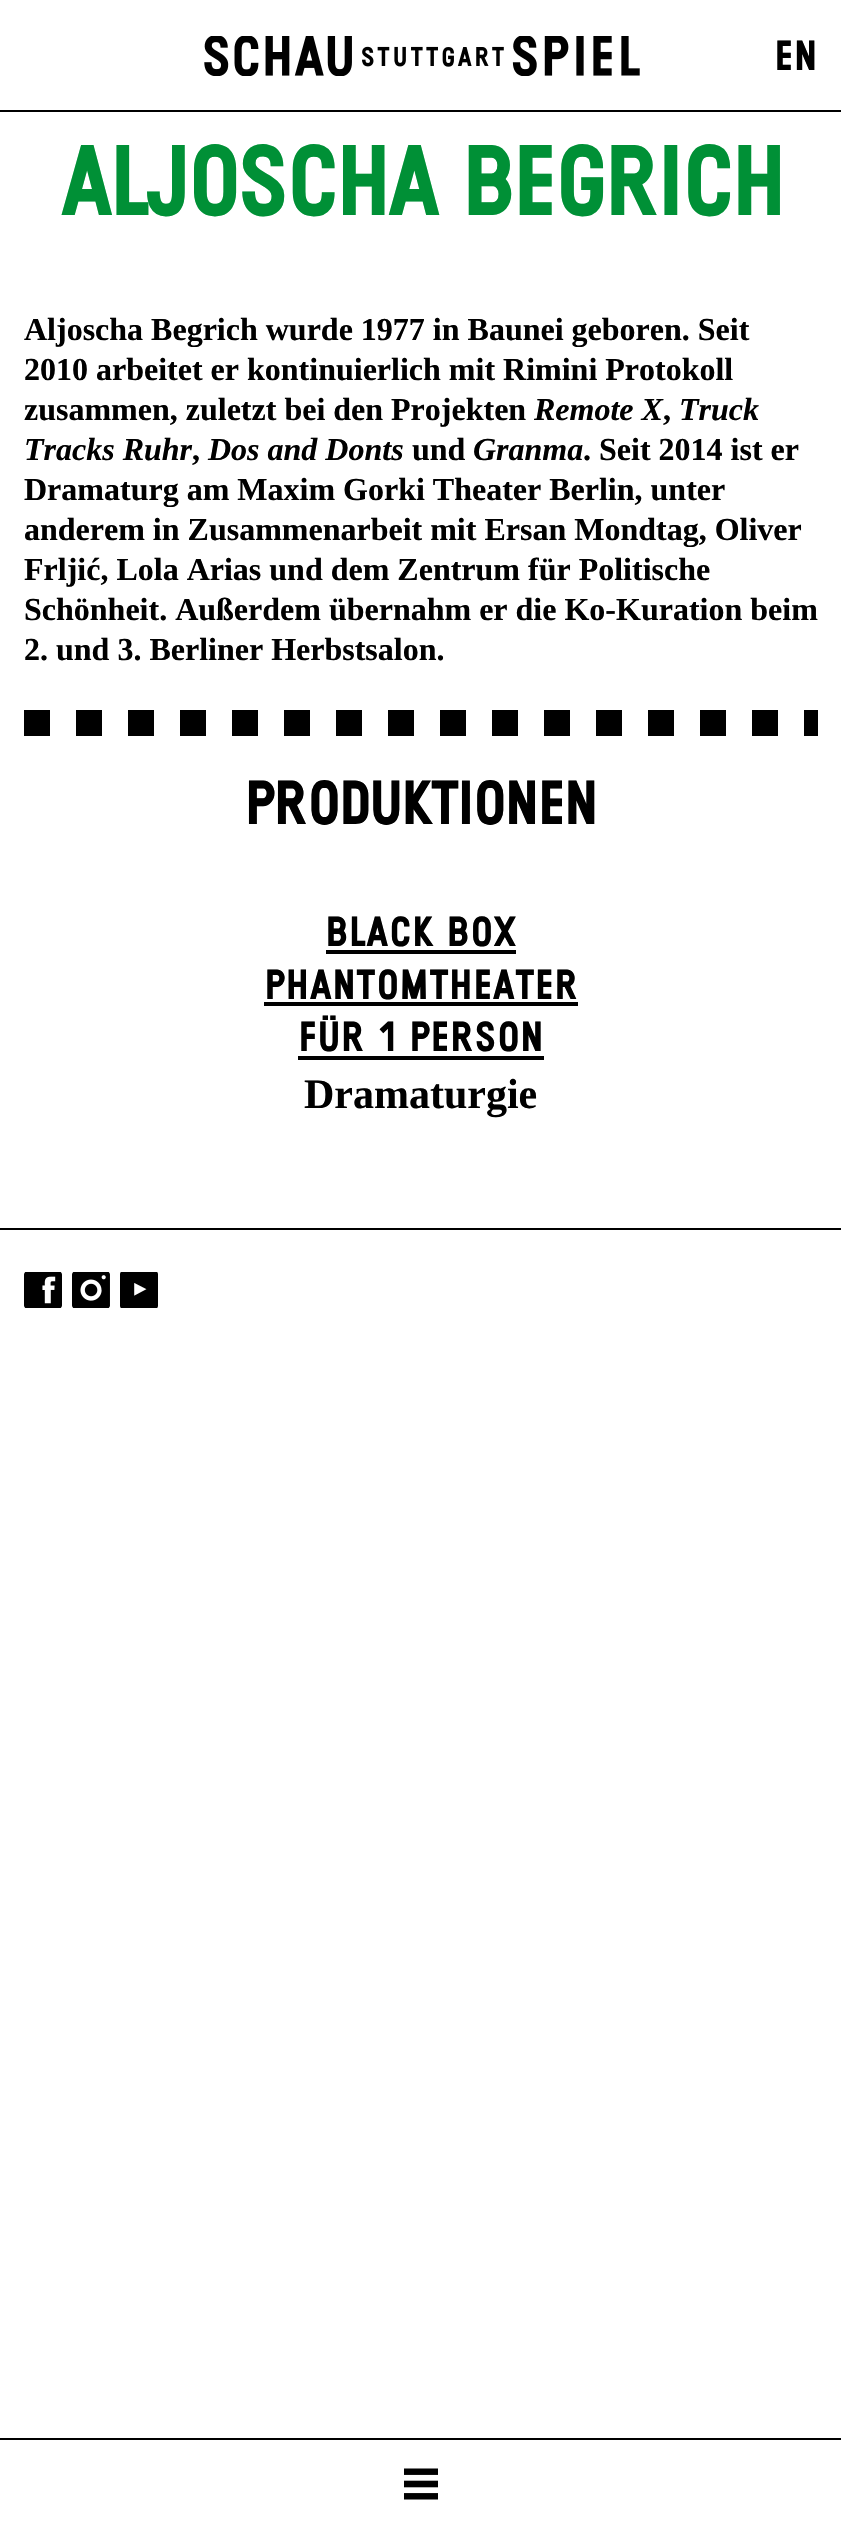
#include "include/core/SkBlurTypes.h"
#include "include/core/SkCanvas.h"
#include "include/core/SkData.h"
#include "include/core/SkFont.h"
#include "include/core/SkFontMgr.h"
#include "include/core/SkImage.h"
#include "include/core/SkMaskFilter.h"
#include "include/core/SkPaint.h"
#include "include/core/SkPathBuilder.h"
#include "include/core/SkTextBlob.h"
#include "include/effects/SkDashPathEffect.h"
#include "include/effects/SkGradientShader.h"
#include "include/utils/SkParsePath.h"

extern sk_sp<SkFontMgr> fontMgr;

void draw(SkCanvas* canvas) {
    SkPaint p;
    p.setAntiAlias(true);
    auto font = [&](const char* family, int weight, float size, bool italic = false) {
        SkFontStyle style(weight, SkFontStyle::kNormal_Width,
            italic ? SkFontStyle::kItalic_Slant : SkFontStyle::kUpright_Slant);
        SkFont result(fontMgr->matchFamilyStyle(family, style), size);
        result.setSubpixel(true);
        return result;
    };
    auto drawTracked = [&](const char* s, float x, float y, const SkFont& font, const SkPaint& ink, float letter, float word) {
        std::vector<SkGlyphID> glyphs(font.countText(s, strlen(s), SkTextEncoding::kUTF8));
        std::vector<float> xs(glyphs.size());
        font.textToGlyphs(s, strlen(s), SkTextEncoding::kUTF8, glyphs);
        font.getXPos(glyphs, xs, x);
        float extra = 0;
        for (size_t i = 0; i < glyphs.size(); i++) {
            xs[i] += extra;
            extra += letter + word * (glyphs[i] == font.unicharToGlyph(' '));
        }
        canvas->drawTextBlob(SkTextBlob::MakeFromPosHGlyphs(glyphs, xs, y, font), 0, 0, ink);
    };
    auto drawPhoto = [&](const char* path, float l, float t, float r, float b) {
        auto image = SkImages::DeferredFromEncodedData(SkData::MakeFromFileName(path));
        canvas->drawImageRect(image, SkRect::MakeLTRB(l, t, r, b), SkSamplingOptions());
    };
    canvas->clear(0xFFFFFFFF);
    p.setColor(0xFF000000);
    canvas->drawRect(SkRect::MakeLTRB(0, 110, 841, 112), p);
    drawPhoto("media/1.png", 204, 36, 640, 76);
    auto font1 = font("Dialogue", 700, 42);
    canvas->drawString("EN", 774, 70, font1, p);
    canvas->drawRect(SkRect::MakeLTRB(0, 2438, 841, 2440), p);
    drawPhoto("media/2.png", 404, 2468, 438, 2500);
    auto font2 = font("Dialogue", 700, 100);
    p.setColor(0xFF009036);
    drawTracked("ALJOSCHA BEGRICH", 60, 215, font2, p, -5, 0);
    auto font3 = font("Liberation Serif", 700, 32);
    p.setColor(0xFF000000);
    {
        const struct { const char* s; float x, y; } items[] = {
            {"Aljoscha Begrich wurde 1977 in Baunei geboren. Seit", 24, 340},
            {"2010 arbeitet er kontinuierlich mit Rimini Protokoll", 24, 380},
            {"zusammen, zuletzt bei den Projekten", 24, 420},
        };
        for (auto [s, x, y] : items) {
            canvas->drawString(s, x, y, font3, p);
        }
    }
    auto font4 = font("Liberation Serif", 700, 32, true);
    canvas->drawString("Remote X", 534, 420, font4, p);
    canvas->drawString(",", 663, 420, font3, p);
    canvas->drawString("Truck", 679, 420, font4, p);
    canvas->drawString("Tracks Ruhr", 24, 460, font4, p);
    canvas->drawString(",", 192, 460, font3, p);
    canvas->drawString("Dos and Donts", 208, 460, font4, p);
    canvas->drawString("und", 412, 460, font3, p);
    canvas->drawString("Granma", 473, 460, font4, p);
    {
        const struct { const char* s; float x, y; } items[] = {
            {". Seit 2014 ist er", 583, 460},
            {"Dramaturg am Maxim Gorki Theater Berlin, unter", 24, 500},
            {"anderem in Zusammenarbeit mit Ersan Mondtag, Oliver", 24, 540},
            {"Frljić, Lola Arias und dem Zentrum für Politische", 24, 580},
            {"Schönheit. Außerdem übernahm er die Ko-Kuration beim", 24, 620},
            {"2. und 3. Berliner Herbstsalon.", 24, 660},
        };
        for (auto [s, x, y] : items) {
            canvas->drawString(s, x, y, font3, p);
        }
    }
    drawPhoto("media/3.png", 24, 710, 818, 736);
    auto font5 = font("Dialogue", 700, 62);
    drawTracked("PRODUKTIONEN", 244, 824, font5, p, -2.5f, 0);
    canvas->drawString("BLACK BOX", 325, 946, font1, p);
    canvas->drawRect(SkRect::MakeLTRB(326, 950, 516, 954), p);
    canvas->drawString("PHANTOMTHEATER", 264, 999, font1, p);
    canvas->drawRect(SkRect::MakeLTRB(264, 1002, 578, 1006), p);
    canvas->drawString("FÜR 1 PERSON", 298, 1051, font1, p);
    canvas->drawRect(SkRect::MakeLTRB(298, 1056, 544, 1060), p);
    auto font6 = font("Liberation Serif", 700, 42);
    canvas->drawString("Dramaturgie", 304, 1108, font6, p);
    canvas->drawRect(SkRect::MakeLTRB(0, 1228, 841, 1230), p);
    drawPhoto("media/4.png", 24, 1272, 62, 1308);
    drawPhoto("media/5.png", 72, 1272, 110, 1308);
    drawPhoto("media/6.png", 120, 1272, 158, 1308);
}
